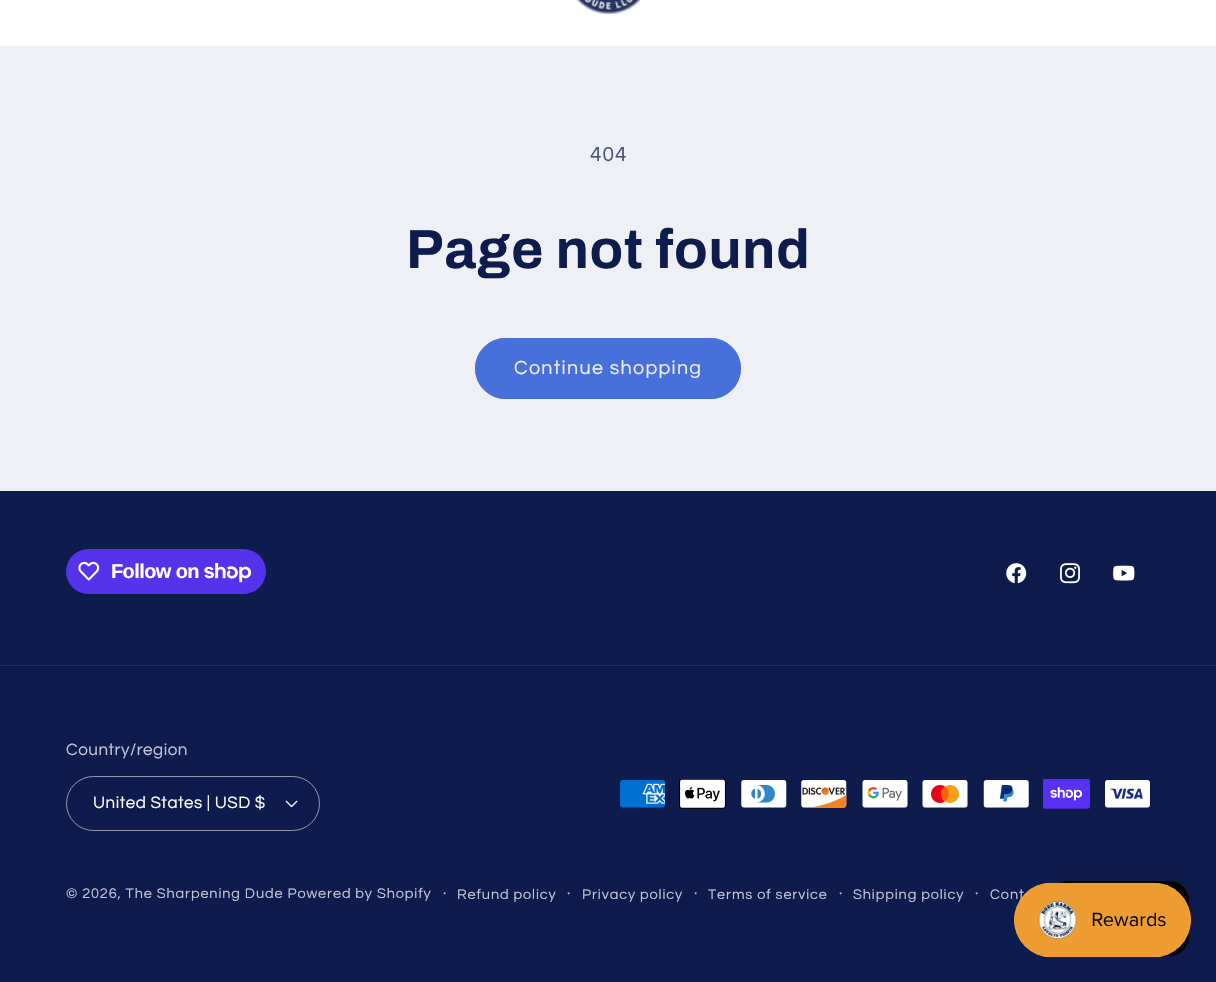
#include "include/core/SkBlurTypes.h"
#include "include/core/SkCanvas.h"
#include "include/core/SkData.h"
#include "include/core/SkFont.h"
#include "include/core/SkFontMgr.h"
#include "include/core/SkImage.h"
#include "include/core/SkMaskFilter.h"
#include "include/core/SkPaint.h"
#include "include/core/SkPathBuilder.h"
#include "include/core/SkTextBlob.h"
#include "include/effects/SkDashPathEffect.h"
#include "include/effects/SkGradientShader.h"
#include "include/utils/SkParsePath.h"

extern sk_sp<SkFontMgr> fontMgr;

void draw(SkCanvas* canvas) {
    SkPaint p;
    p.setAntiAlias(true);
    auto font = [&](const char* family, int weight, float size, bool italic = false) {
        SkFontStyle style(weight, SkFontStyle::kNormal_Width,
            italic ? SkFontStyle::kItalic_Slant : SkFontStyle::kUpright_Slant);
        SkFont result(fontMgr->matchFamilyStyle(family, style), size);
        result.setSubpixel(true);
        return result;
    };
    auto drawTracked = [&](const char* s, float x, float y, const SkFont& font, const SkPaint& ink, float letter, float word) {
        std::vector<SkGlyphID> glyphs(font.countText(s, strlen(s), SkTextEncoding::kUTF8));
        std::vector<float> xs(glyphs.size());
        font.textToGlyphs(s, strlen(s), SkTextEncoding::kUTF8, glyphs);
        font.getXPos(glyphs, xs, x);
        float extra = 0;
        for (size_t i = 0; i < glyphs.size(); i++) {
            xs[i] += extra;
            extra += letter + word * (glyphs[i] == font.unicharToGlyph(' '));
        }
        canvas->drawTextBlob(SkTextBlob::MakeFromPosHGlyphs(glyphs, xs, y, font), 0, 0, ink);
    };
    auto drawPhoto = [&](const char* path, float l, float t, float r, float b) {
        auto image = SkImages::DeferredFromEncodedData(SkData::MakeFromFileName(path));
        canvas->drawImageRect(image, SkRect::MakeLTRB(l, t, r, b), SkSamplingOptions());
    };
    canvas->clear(0xFFEFF0F5);
    p.setColor(0xFFFFFFFF);
    canvas->drawRect(SkRect::MakeLTRB(0, 0, 1216, 46), p);
    drawPhoto("media/1.png", 576, 0, 641, 14);
    auto font1 = font("Questrial", 400, 21);
    p.setColor(0xFF465077);
    drawTracked("404", 590, 161, font1, p, 1, 0);
    auto font2 = font("Archivo", 700, 55);
    p.setColor(0xFF0E1B4D);
    drawTracked("Page not found", 406, 268, font2, p, 0.8f, 0);
    p.setColor(0xFF4770DB);
    canvas->drawRoundRect(SkRect::MakeLTRB(475, 338, 741, 399), 30.5f, 30.5f, p);
    p.setStyle(SkPaint::kStroke_Style);
    p.setStrokeWidth(1);
    canvas->drawRoundRect(SkRect::MakeLTRB(475.5f, 338.5f, 740.5f, 398.5f), 30, 30, p);
    auto font3 = font("Questrial", 400, 19.75f);
    p.setStyle(SkPaint::kFill_Style);
    p.setColor(0xFFEFF0F5);
    drawTracked("Continue shopping", 514, 374, font3, p, 1.3f, 0);
    p.setColor(0xFF0E1B4D);
    canvas->drawRect(SkRect::MakeLTRB(0, 491, 1216, 982), p);
    p.setColor(0xFF5433EB);
    canvas->drawRoundRect(SkRect::MakeLTRB(66, 549, 266, 594), 22.5f, 22.5f, p);
    drawPhoto("media/2.png", 78, 561, 100, 581);
    auto font4 = font("Liberation Sans", 700, 20);
    p.setColor(0xFFFFFFFF);
    drawTracked("Follow on", 111, 578, font4, p, -0.6f, 0);
    drawPhoto("media/3.png", 204, 563, 251, 583);
    drawPhoto("media/4.png", 1006, 563, 1027, 584);
    drawPhoto("media/5.png", 1060, 563, 1080, 584);
    drawPhoto("media/6.png", 1113, 565, 1135, 581);
    p.setColor(0xFF212D5B);
    canvas->drawRect(SkRect::MakeLTRB(0, 665, 1216, 666), p);
    auto font5 = font("Questrial", 400, 17);
    p.setColor(0xFFC3C6D3);
    drawTracked("Country/region", 66, 755, font5, p, 0.5f, 0);
    drawPhoto("media/7.png", 285, 800, 298, 808);
    p.setStyle(SkPaint::kStroke_Style);
    p.setColor(0xFF9398AF);
    canvas->drawRoundRect(SkRect::MakeLTRB(66.5f, 776.5f, 319.5f, 830.5f), 27, 27, p);
    p.setStyle(SkPaint::kFill_Style);
    p.setColor(0xFFFFFFFF);
    drawTracked("United States | USD $", 93, 808, font5, p, 0.5f, 0);
    drawPhoto("media/8.png", 619, 779, 666, 808);
    drawPhoto("media/9.png", 679, 779, 726, 809);
    drawPhoto("media/10.png", 740, 779, 787, 808);
    drawPhoto("media/11.png", 800, 779, 847, 808);
    drawPhoto("media/12.png", 862, 779, 908, 808);
    drawPhoto("media/13.png", 922, 779, 968, 808);
    drawPhoto("media/14.png", 983, 779, 1030, 808);
    drawPhoto("media/15.png", 1043, 779, 1090, 809);
    drawPhoto("media/16.png", 1104, 779, 1151, 808);
    auto font6 = font("Questrial", 400, 14.45f);
    p.setColor(0xFFC3C6D3);
    drawTracked("© 2026, The Sharpening Dude Powered by Shopify", 66, 898, font6, p, 0.9f, 0);
    auto font7 = font("Questrial", 400, 16);
    drawTracked("·", 443, 898, font7, p, 0.9f, 0);
    drawTracked("Refund policy", 457, 899, font6, p, 0.9f, 0);
    drawTracked("·", 567, 898, font7, p, 0.9f, 0);
    drawTracked("Privacy policy", 582, 899, font6, p, 0.9f, 0);
    drawTracked("·", 694, 898, font7, p, 0.9f, 0);
    drawTracked("Terms of service", 708, 899, font6, p, 0.9f, 0);
    drawTracked("·", 839, 898, font7, p, 0.9f, 0);
    drawTracked("Shipping policy", 853, 899, font6, p, 0.9f, 0);
    drawTracked("·", 975, 898, font7, p, 0.9f, 0);
    drawTracked("Cont", 990, 899, font6, p, 0.9f, 0);
    p.setColor(0x26000000);
    p.setMaskFilter(SkMaskFilter::MakeBlur(kNormal_SkBlurStyle, 3));
    canvas->drawRoundRect(SkRect::MakeLTRB(1048, 881, 1189, 956), 20, 20, p);
    p.setMaskFilter(nullptr);
    p.setColor(0xFF000000);
    canvas->drawRoundRect(SkRect::MakeLTRB(1048, 881, 1189, 956), 20, 20, p);
    drawPhoto("media/17.png", 1014, 882, 1191, 958);
}
